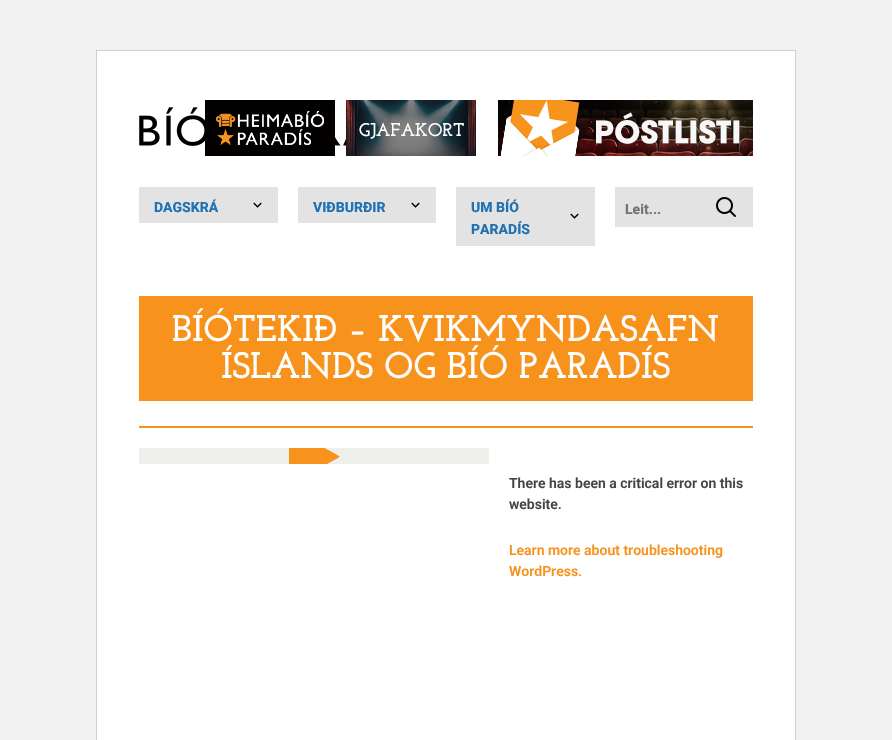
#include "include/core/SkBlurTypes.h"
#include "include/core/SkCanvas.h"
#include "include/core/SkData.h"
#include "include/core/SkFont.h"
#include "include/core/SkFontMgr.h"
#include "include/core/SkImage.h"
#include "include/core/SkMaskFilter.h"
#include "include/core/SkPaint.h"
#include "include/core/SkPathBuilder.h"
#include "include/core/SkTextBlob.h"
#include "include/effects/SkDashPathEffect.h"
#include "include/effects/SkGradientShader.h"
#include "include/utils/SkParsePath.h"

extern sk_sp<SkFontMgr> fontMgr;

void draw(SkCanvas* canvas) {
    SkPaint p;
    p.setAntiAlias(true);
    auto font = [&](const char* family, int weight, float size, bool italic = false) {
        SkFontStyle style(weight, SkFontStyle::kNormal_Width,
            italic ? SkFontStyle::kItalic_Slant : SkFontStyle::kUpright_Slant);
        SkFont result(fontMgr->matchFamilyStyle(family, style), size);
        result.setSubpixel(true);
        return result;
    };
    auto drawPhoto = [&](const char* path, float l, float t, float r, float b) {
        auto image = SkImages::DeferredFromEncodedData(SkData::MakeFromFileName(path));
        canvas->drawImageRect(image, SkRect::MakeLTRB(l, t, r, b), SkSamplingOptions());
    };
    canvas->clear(0xFFF1F1F1);
    p.setColor(0xFFFFFFFF);
    canvas->drawRect(SkRect::MakeLTRB(96.5f, 50.5f, 795.5f, 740.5f), p);
    p.setStyle(SkPaint::kStroke_Style);
    p.setStrokeWidth(1);
    p.setColor(0xFFCCD0D4);
    canvas->drawRect(SkRect::MakeLTRB(96.5f, 50.5f, 795.5f, 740.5f), p);
    drawPhoto("media/4.png", 139, 107, 346, 146);
    drawPhoto("media/1.png", 205, 100, 335, 156);
    drawPhoto("media/2.png", 346, 100, 476, 156);
    drawPhoto("media/3.png", 498, 100, 753, 156);
    p.setStyle(SkPaint::kFill_Style);
    p.setColor(0xFFE3E3E3);
    canvas->drawRect(SkRect::MakeLTRB(139, 187, 278, 223), p);
    drawPhoto("media/5.png", 253, 202, 262, 208);
    auto font1 = font("Roboto", 800, 14);
    p.setColor(0xFF2271B1);
    canvas->drawString("DAGSKRÁ", 154, 212, font1, p);
    p.setColor(0xFFE3E3E3);
    canvas->drawRect(SkRect::MakeLTRB(298, 187, 436, 223), p);
    drawPhoto("media/5.png", 411, 202, 420, 208);
    p.setColor(0xFF2271B1);
    canvas->drawString("VIÐBURÐIR", 313, 212, font1, p);
    p.setColor(0xFFE3E3E3);
    canvas->drawRect(SkRect::MakeLTRB(456, 187, 595, 246), p);
    drawPhoto("media/5.png", 570, 213, 579, 219);
    p.setColor(0xFF2271B1);
    canvas->drawString("UM BÍÓ", 471, 212, font1, p);
    canvas->drawString("PARADÍS", 471, 234, font1, p);
    p.setColor(0xFFE3E3E3);
    canvas->drawRect(SkRect::MakeLTRB(615, 187, 753, 227), p);
    drawPhoto("media/6.png", 716, 197, 736, 217);
    p.setColor(0xFF757575);
    canvas->drawString("Leit...", 625, 214, font1, p);
    p.setColor(0xFFF7931D);
    canvas->drawRect(SkRect::MakeLTRB(139, 296, 753, 401), p);
    auto font2 = font("Josefin Slab", 700, 37);
    p.setColor(0xFFFFFFFF);
    canvas->drawString("BÍÓTEKIÐ – KVIKMYNDASAFN", 172, 341, font2, p);
    canvas->drawString("ÍSLANDS OG BÍÓ PARADÍS", 221, 378, font2, p);
    p.setColor(0xFFF7931D);
    canvas->drawRect(SkRect::MakeLTRB(139, 426, 753, 428), p);
    p.setColor(0xFFEFEFEC);
    canvas->drawRect(SkRect::MakeLTRB(139, 448, 489, 464), p);
    canvas->save();
    canvas->clipRect(SkRect::MakeLTRB(139, 448, 489, 464));
    p.setColor(0xFFF7931D);
    canvas->drawPath(SkPathBuilder().moveTo(289, 483).lineTo(289, 439).cubicTo(289, 430, 289, 428, 291, 429).lineTo(339, 456).cubicTo(340, 456, 339, 457, 338, 458).lineTo(290, 484).cubicTo(290, 484, 289, 484, 289, 483).close().detach(), p);
    canvas->restore();
    auto font3 = font("Roboto", 600, 14);
    p.setColor(0xFF444444);
    canvas->drawString("There has been a critical error on this", 509, 488, font3, p);
    canvas->drawString("website.", 509, 509, font3, p);
    p.setColor(0xFFF7931D);
    canvas->drawString("Learn more about troubleshooting", 509, 555, font3, p);
    canvas->drawString("WordPress.", 509, 576, font3, p);
}
